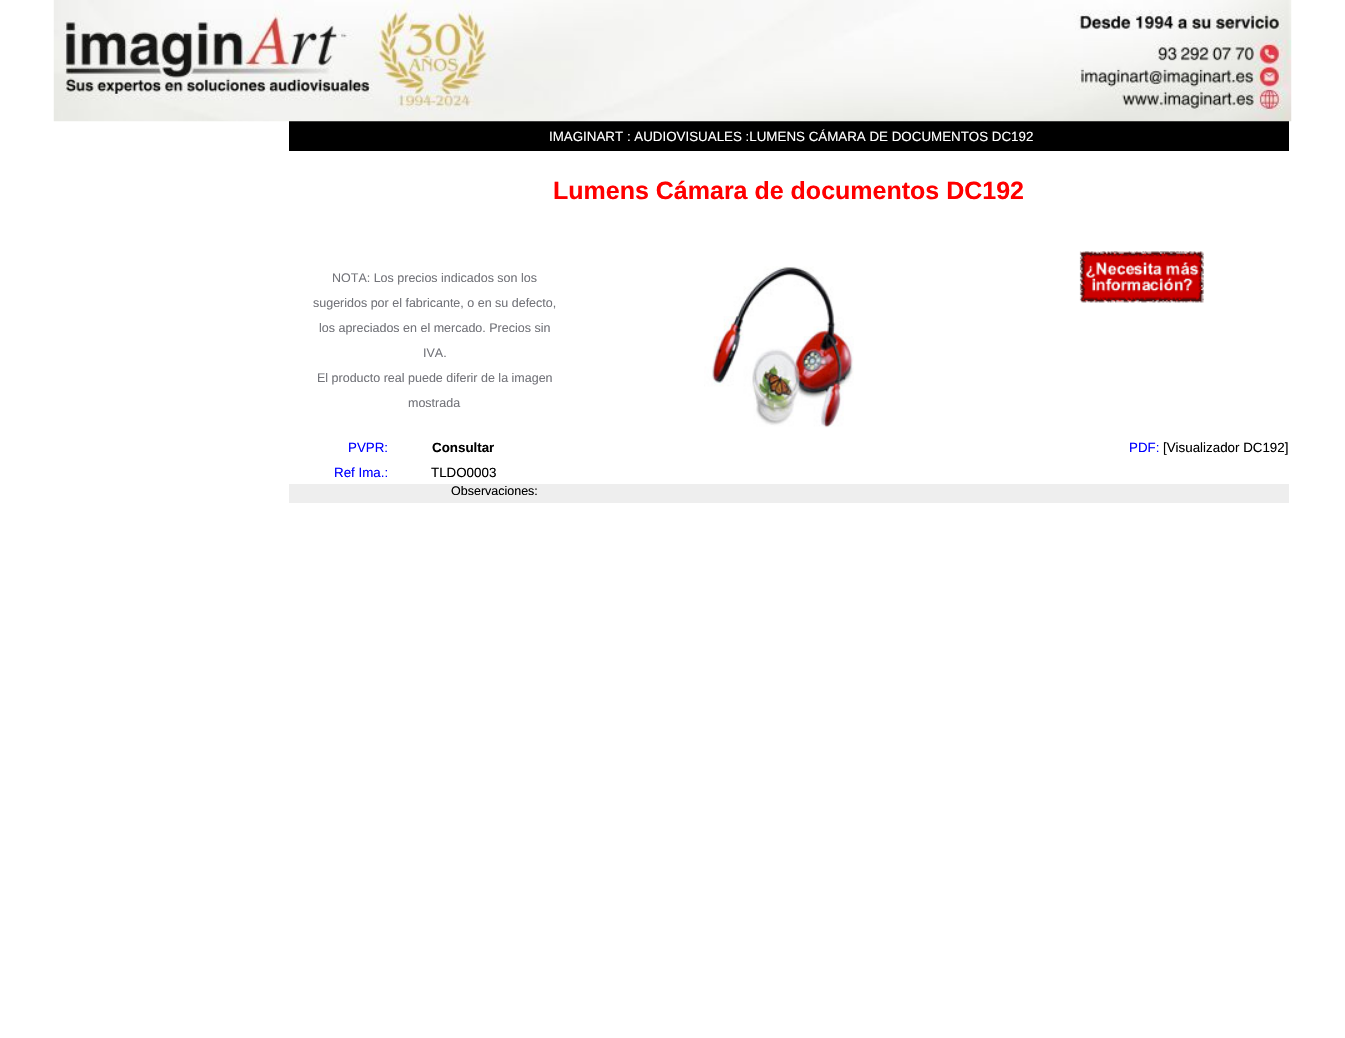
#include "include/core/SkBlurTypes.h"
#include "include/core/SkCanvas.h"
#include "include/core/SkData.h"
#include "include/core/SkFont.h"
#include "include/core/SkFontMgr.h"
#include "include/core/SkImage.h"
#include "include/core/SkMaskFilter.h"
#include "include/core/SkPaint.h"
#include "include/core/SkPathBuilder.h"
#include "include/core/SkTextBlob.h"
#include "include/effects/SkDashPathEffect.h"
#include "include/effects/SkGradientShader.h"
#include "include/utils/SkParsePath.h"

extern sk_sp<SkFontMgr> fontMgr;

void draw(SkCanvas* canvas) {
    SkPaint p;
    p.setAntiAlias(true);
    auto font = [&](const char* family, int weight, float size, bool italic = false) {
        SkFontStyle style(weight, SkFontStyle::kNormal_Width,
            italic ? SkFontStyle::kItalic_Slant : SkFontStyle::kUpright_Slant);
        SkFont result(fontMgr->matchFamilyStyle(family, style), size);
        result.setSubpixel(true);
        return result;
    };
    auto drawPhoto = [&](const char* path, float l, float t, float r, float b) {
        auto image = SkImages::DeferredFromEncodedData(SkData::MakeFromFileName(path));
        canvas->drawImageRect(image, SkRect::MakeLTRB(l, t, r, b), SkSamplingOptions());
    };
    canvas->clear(0xFFFFFFFF);
    p.setColor(0xFF000000);
    canvas->drawRect(SkRect::MakeLTRB(289, 121, 1289, 151), p);
    drawPhoto("media/1.png", 53, 0, 1292, 122);
    auto font1 = font("Liberation Sans", 400, 13.35f);
    p.setColor(0xFFFFFFFF);
    canvas->drawString("IMAGINART : AUDIOVISUALES :LUMENS CÁMARA DE DOCUMENTOS DC192", 549, 141, font1, p);
    auto font2 = font("Liberation Sans", 700, 25);
    p.setColor(0xFFFF0000);
    canvas->drawString("Lumens Cámara de documentos DC192", 553, 199, font2, p);
    auto font3 = font("Liberation Sans", 400, 12.5f);
    p.setColor(0xFF73747A);
    {
        const struct { const char* s; float x, y; } items[] = {
            {"NOTA: Los precios indicados son los", 332, 282},
            {"sugeridos por el fabricante, o en su defecto,", 313, 307},
            {"los apreciados en el mercado. Precios sin", 319, 332},
            {"IVA.", 423, 357},
            {"El producto real puede diferir de la imagen", 317, 382},
            {"mostrada", 408, 407},
        };
        for (auto [s, x, y] : items) {
            canvas->drawString(s, x, y, font3, p);
        }
    }
    drawPhoto("media/2.png", 704, 266, 854, 428);
    drawPhoto("media/3.png", 1079, 251, 1204, 303);
    p.setColor(0xFF0000FF);
    canvas->drawString("PVPR:", 348, 452, font1, p);
    auto font4 = font("Liberation Sans", 700, 13.35f);
    p.setColor(0xFF000000);
    canvas->drawString("Consultar", 432, 452, font4, p);
    p.setColor(0xFF0000FF);
    canvas->drawString("PDF:", 1129, 452, font1, p);
    p.setColor(0xFF000000);
    canvas->drawString("[Visualizador DC192]", 1163, 452, font1, p);
    p.setColor(0xFF0000FF);
    canvas->drawString("Ref Ima.:", 334, 477, font1, p);
    p.setColor(0xFF000000);
    canvas->drawString("TLDO0003", 431, 477, font1, p);
    p.setColor(0xFFEEEEEE);
    canvas->drawRect(SkRect::MakeLTRB(289, 484, 1289, 503), p);
    p.setColor(0xFF000000);
    canvas->drawString("Observaciones:", 451, 495, font3, p);
}
